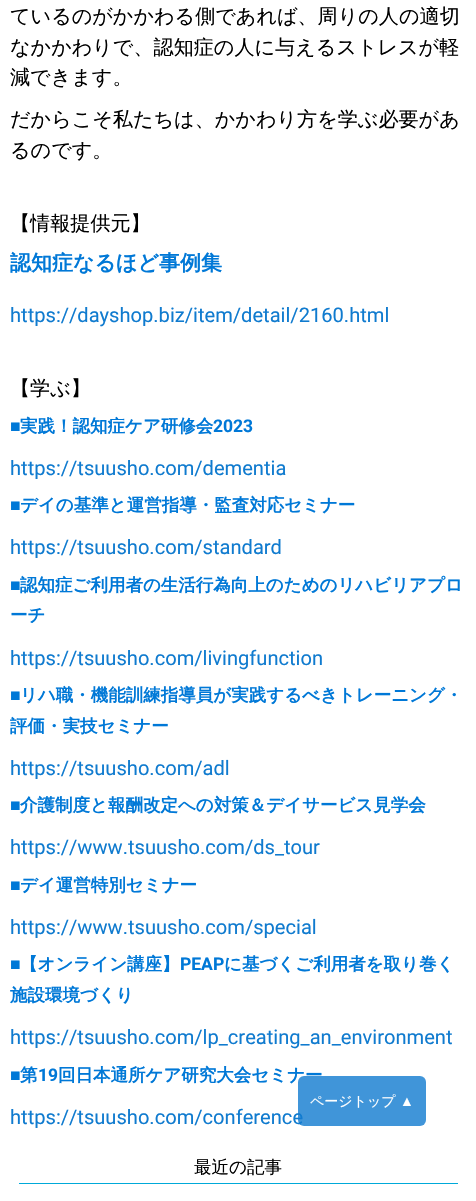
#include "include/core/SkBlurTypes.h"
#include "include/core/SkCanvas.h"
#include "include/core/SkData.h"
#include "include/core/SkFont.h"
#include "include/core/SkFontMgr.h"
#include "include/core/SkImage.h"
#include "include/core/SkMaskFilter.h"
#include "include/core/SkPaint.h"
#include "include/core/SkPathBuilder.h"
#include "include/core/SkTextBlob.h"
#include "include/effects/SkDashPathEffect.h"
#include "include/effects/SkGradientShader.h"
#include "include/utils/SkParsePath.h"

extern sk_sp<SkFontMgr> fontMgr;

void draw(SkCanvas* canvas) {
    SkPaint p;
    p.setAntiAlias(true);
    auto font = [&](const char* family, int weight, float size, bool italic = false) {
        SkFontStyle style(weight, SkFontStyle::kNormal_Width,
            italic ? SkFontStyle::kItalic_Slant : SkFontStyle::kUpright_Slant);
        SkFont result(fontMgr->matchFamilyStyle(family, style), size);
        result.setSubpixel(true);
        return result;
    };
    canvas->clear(0xFFFFFFFF);
    auto font1 = font("WenQuanYi Zen Hei", 500, 20.1f);
    p.setColor(0xFF000000);
    {
        const struct { const char* s; float x, y; } items[] = {
            {"ているのがかかわる側であれば、周りの人の適切", 10, 23},
            {"なかかわりで、認知症の人に与えるストレスが軽", 10, 54},
            {"減できます。", 10, 84},
            {"だからこそ私たちは、かかわり方を学ぶ必要があ", 10, 126},
            {"るのです。", 10, 157},
            {"【情報提供元】", 10, 230},
        };
        for (auto [s, x, y] : items) {
            canvas->drawString(s, x, y, font1, p);
        }
    }
    auto font2 = font("WenQuanYi Zen Hei", 700, 21);
    p.setColor(0xFF0078D7);
    canvas->drawString("認知症なるほど事例集", 10, 270, font2, p);
    auto font3 = font("Roboto", 400, 20.1f);
    p.setColor(0xFF107BCF);
    canvas->drawString("https://dayshop.biz/item/detail/2160.html", 10, 322, font3, p);
    p.setColor(0xFF000000);
    canvas->drawString("【学ぶ】", 10, 395, font1, p);
    auto font4 = font("Liberation Sans", 700, 17.5f);
    p.setColor(0xFF0078D7);
    canvas->drawString("■", 10, 432, font4, p);
    auto font5 = font("WenQuanYi Zen Hei", 700, 17.5f);
    canvas->drawString("実践！認知症ケア研修会", 20, 432, font5, p);
    auto font6 = font("Roboto", 700, 17.5f);
    canvas->drawString("2023", 213, 432, font6, p);
    p.setColor(0xFF107BCF);
    canvas->drawString("https://tsuusho.com/dementia", 10, 475, font3, p);
    p.setColor(0xFF0078D7);
    canvas->drawString("■", 10, 511, font4, p);
    canvas->drawString("デイの基準と運営指導・監査対応セミナー", 20, 511, font5, p);
    p.setColor(0xFF107BCF);
    canvas->drawString("https://tsuusho.com/standard", 10, 554, font3, p);
    p.setColor(0xFF0078D7);
    canvas->drawString("■", 10, 591, font4, p);
    canvas->drawString("認知症ご利用者の生活行為向上のためのリハビリアプロ", 20, 591, font5, p);
    canvas->drawString("ーチ", 10, 621, font5, p);
    p.setColor(0xFF107BCF);
    canvas->drawString("https://tsuusho.com/livingfunction", 10, 665, font3, p);
    p.setColor(0xFF0078D7);
    canvas->drawString("■", 10, 701, font4, p);
    canvas->drawString("リハ職・機能訓練指導員が実践するべきトレーニング・", 20, 701, font5, p);
    canvas->drawString("評価・実技セミナー", 10, 732, font5, p);
    p.setColor(0xFF107BCF);
    canvas->drawString("https://tsuusho.com/adl", 10, 775, font3, p);
    p.setColor(0xFF0078D7);
    canvas->drawString("■", 10, 811, font4, p);
    canvas->drawString("介護制度と報酬改定への対策＆デイサービス見学会", 20, 811, font5, p);
    p.setColor(0xFF107BCF);
    canvas->drawString("https://www.tsuusho.com/ds_tour", 10, 854, font3, p);
    p.setColor(0xFF0078D7);
    canvas->drawString("■", 10, 891, font4, p);
    canvas->drawString("デイ運営特別セミナー", 20, 891, font5, p);
    p.setColor(0xFF107BCF);
    canvas->drawString("https://www.tsuusho.com/special", 10, 934, font3, p);
    p.setColor(0xFF0078D7);
    canvas->drawString("■", 10, 970, font4, p);
    canvas->drawString("【オンライン講座】", 20, 970, font5, p);
    canvas->drawString("PEAP", 180, 970, font6, p);
    canvas->drawString("に基づくご利用者を取り巻く", 224, 970, font5, p);
    canvas->drawString("施設環境づくり", 10, 1001, font5, p);
    p.setColor(0xFF107BCF);
    canvas->drawString("https://tsuusho.com/lp_creating_an_environment", 10, 1044, font3, p);
    p.setColor(0xFF0078D7);
    canvas->drawString("■", 10, 1081, font4, p);
    canvas->drawString("第", 20, 1081, font5, p);
    canvas->drawString("19", 38, 1081, font6, p);
    canvas->drawString("回日本通所ケア研究大会セミナー", 58, 1081, font5, p);
    p.setColor(0xFF107BCF);
    canvas->drawString("https://tsuusho.com/conference", 10, 1124, font3, p);
    p.setColor(0xFF00A9D9);
    canvas->drawRect(SkRect::MakeLTRB(19, 1183, 458, 1184), p);
    auto font7 = font("WenQuanYi Zen Hei", 500, 17.5f);
    p.setColor(0xFF000000);
    canvas->drawString("最近の記事", 194, 1173, font7, p);
    p.setColor(0xCC107BCF);
    canvas->drawRoundRect(SkRect::MakeLTRB(298, 1076, 426, 1126), 6, 6, p);
    auto font8 = font("WenQuanYi Zen Hei", 500, 14);
    p.setColor(0xFFFFFFFF);
    canvas->drawString("ページトップ", 310, 1106, font8, p);
    auto font9 = font("Liberation Sans", 400, 14);
    canvas->drawString("▲", 400, 1106, font9, p);
}
